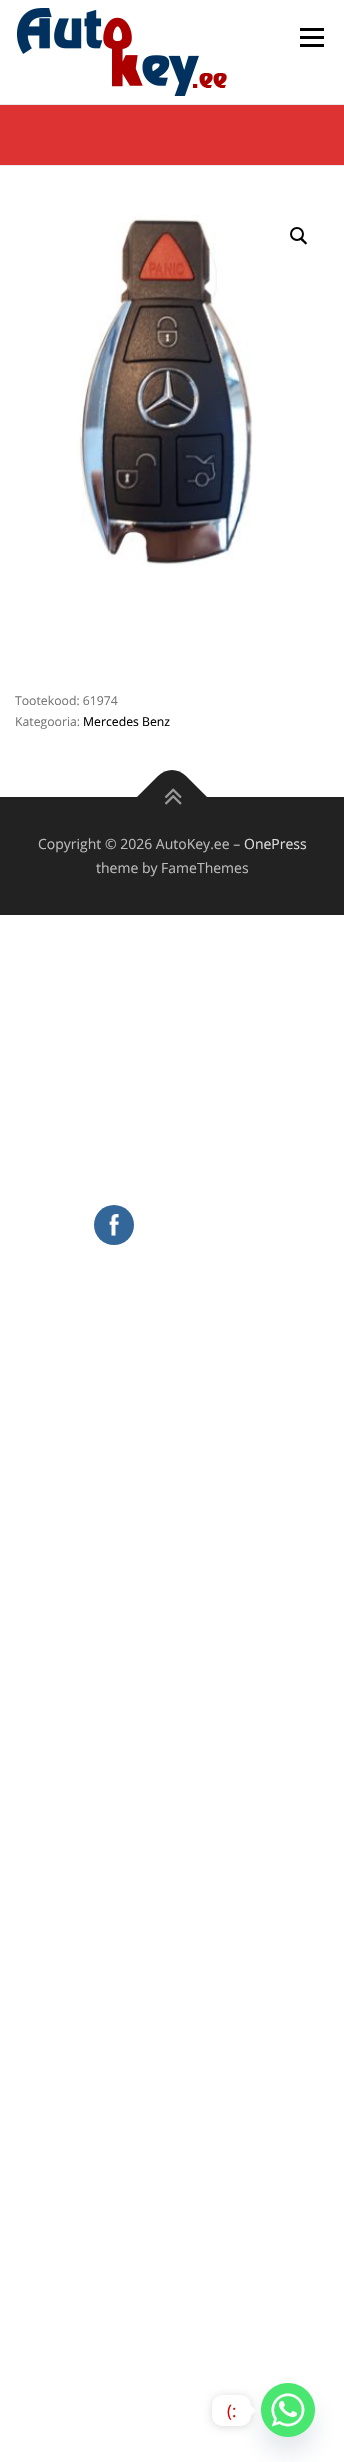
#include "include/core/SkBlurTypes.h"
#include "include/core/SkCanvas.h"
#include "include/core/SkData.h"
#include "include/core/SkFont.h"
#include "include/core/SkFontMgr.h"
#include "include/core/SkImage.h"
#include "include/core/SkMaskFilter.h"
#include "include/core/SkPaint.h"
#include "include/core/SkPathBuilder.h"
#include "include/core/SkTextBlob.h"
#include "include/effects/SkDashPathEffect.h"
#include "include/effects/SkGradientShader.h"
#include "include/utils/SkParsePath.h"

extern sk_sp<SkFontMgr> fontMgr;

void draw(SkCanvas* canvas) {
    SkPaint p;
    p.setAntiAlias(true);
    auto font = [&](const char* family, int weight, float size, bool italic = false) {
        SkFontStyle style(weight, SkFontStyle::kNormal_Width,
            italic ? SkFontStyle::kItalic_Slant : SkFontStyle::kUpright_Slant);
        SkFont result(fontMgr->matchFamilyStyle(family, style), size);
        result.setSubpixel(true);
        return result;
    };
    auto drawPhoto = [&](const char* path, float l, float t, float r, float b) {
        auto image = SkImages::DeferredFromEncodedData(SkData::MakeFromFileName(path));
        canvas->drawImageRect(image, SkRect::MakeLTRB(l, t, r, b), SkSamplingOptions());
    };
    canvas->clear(0xFFFFFFFF);
    drawPhoto("media/1.png", 17, 8, 227, 96);
    {
        const struct { float l, t, r, b; SkColor color; } items[] = {
            {300, 36, 324, 39, 0xFF000000},
            {300, 28, 324, 31, 0xFF000000},
            {300, 44, 324, 47, 0xFF000000},
            {0, 104, 344, 105, 0xFFE9E9E9},
            {0, 165, 344, 166, 0xFFE9E9E9},
            {0, 105, 344, 165, 0xFFDD3333},
        };
        for (auto [l, t, r, b, color] : items) {
            p.setColor(color);
            canvas->drawRect(SkRect::MakeLTRB(l, t, r, b), p);
        }
    }
    drawPhoto("media/2.png", 77, 215, 253, 566);
    p.setStyle(SkPaint::kStroke_Style);
    p.setStrokeWidth(2);
    p.setColor(0xFF000000);
    canvas->drawCircle(297, 234, 6, p);
    p.setStyle(SkPaint::kFill_Style);
    canvas->drawPath(SkPathBuilder().moveTo(301, 238.5f).cubicTo(302, 237, 304, 240, 304.5f, 240.5f).cubicTo(305, 241, 308, 243, 306.5f, 244).cubicTo(305.5f, 245.5f, 303.5f, 242.5f, 303, 242).cubicTo(302.5f, 241.5f, 299.5f, 239.5f, 301, 238.5f).close().detach(), p);
    auto font1 = font("Open Sans", 400, 12.25f);
    p.setColor(0xFF777777);
    canvas->drawString("Tootekood: 61974", 15, 705, font1, p);
    canvas->drawString("Kategooria:", 15, 726, font1, p);
    p.setColor(0xFF000000);
    canvas->drawString("Mercedes Benz", 83, 726, font1, p);
    p.setColor(0xFF222222);
    canvas->drawRect(SkRect::MakeLTRB(0, 797, 344, 915), p);
    canvas->drawPath(SkPathBuilder().moveTo(137, 797).lineTo(158, 776).cubicTo(166, 768, 178, 768, 186, 776).lineTo(207, 797).lineTo(172, 833).close().detach(), p);
    drawPhoto("media/3.png", 164, 788, 182, 805);
    auto font2 = font("Open Sans", 400, 14);
    p.setColor(0xFFBBBBBB);
    canvas->drawString("Copyright © 2026 AutoKey.ee –", 38, 849, font2, p);
    p.setColor(0xFFDDDDDD);
    canvas->drawString("OnePress", 244, 849, font2, p);
    p.setColor(0xFFBBBBBB);
    canvas->drawString("theme by FameThemes", 96, 873, font2, p);
    p.setColor(0xFF336699);
    canvas->drawCircle(114, 1225, 20, p);
    drawPhoto("media/4.png", 109, 1214, 119, 1236);
    p.setColor(0x2949687E);
    p.setMaskFilter(SkMaskFilter::MakeBlur(kNormal_SkBlurStyle, 12));
    canvas->drawRoundRect(SkRect::MakeLTRB(261, 2399, 315, 2453), 27, 27, p);
    p.setMaskFilter(nullptr);
    drawPhoto("media/5.png", 261, 2383, 315, 2437);
    p.setColor(0x26000000);
    p.setMaskFilter(SkMaskFilter::MakeBlur(kNormal_SkBlurStyle, 4));
    canvas->drawRoundRect(SkRect::MakeLTRB(212, 2396, 251, 2427), 10, 10, p);
    p.setMaskFilter(nullptr);
    p.setColor(0xFFFFFFFF);
    canvas->drawRoundRect(SkRect::MakeLTRB(212, 2395, 251, 2426), 10, 10, p);
    auto font3 = font("Open Sans", 400, 17);
    p.setColor(0xFFDD0000);
    canvas->drawString("(:", 227, 2417, font3, p);
    p.setColor(0xFFFFFFFF);
    canvas->drawPath(SkPathBuilder().moveTo(251, 2415.5f).lineTo(251, 2405.5f).lineTo(256, 2410.5f).close().detach(), p);
}
